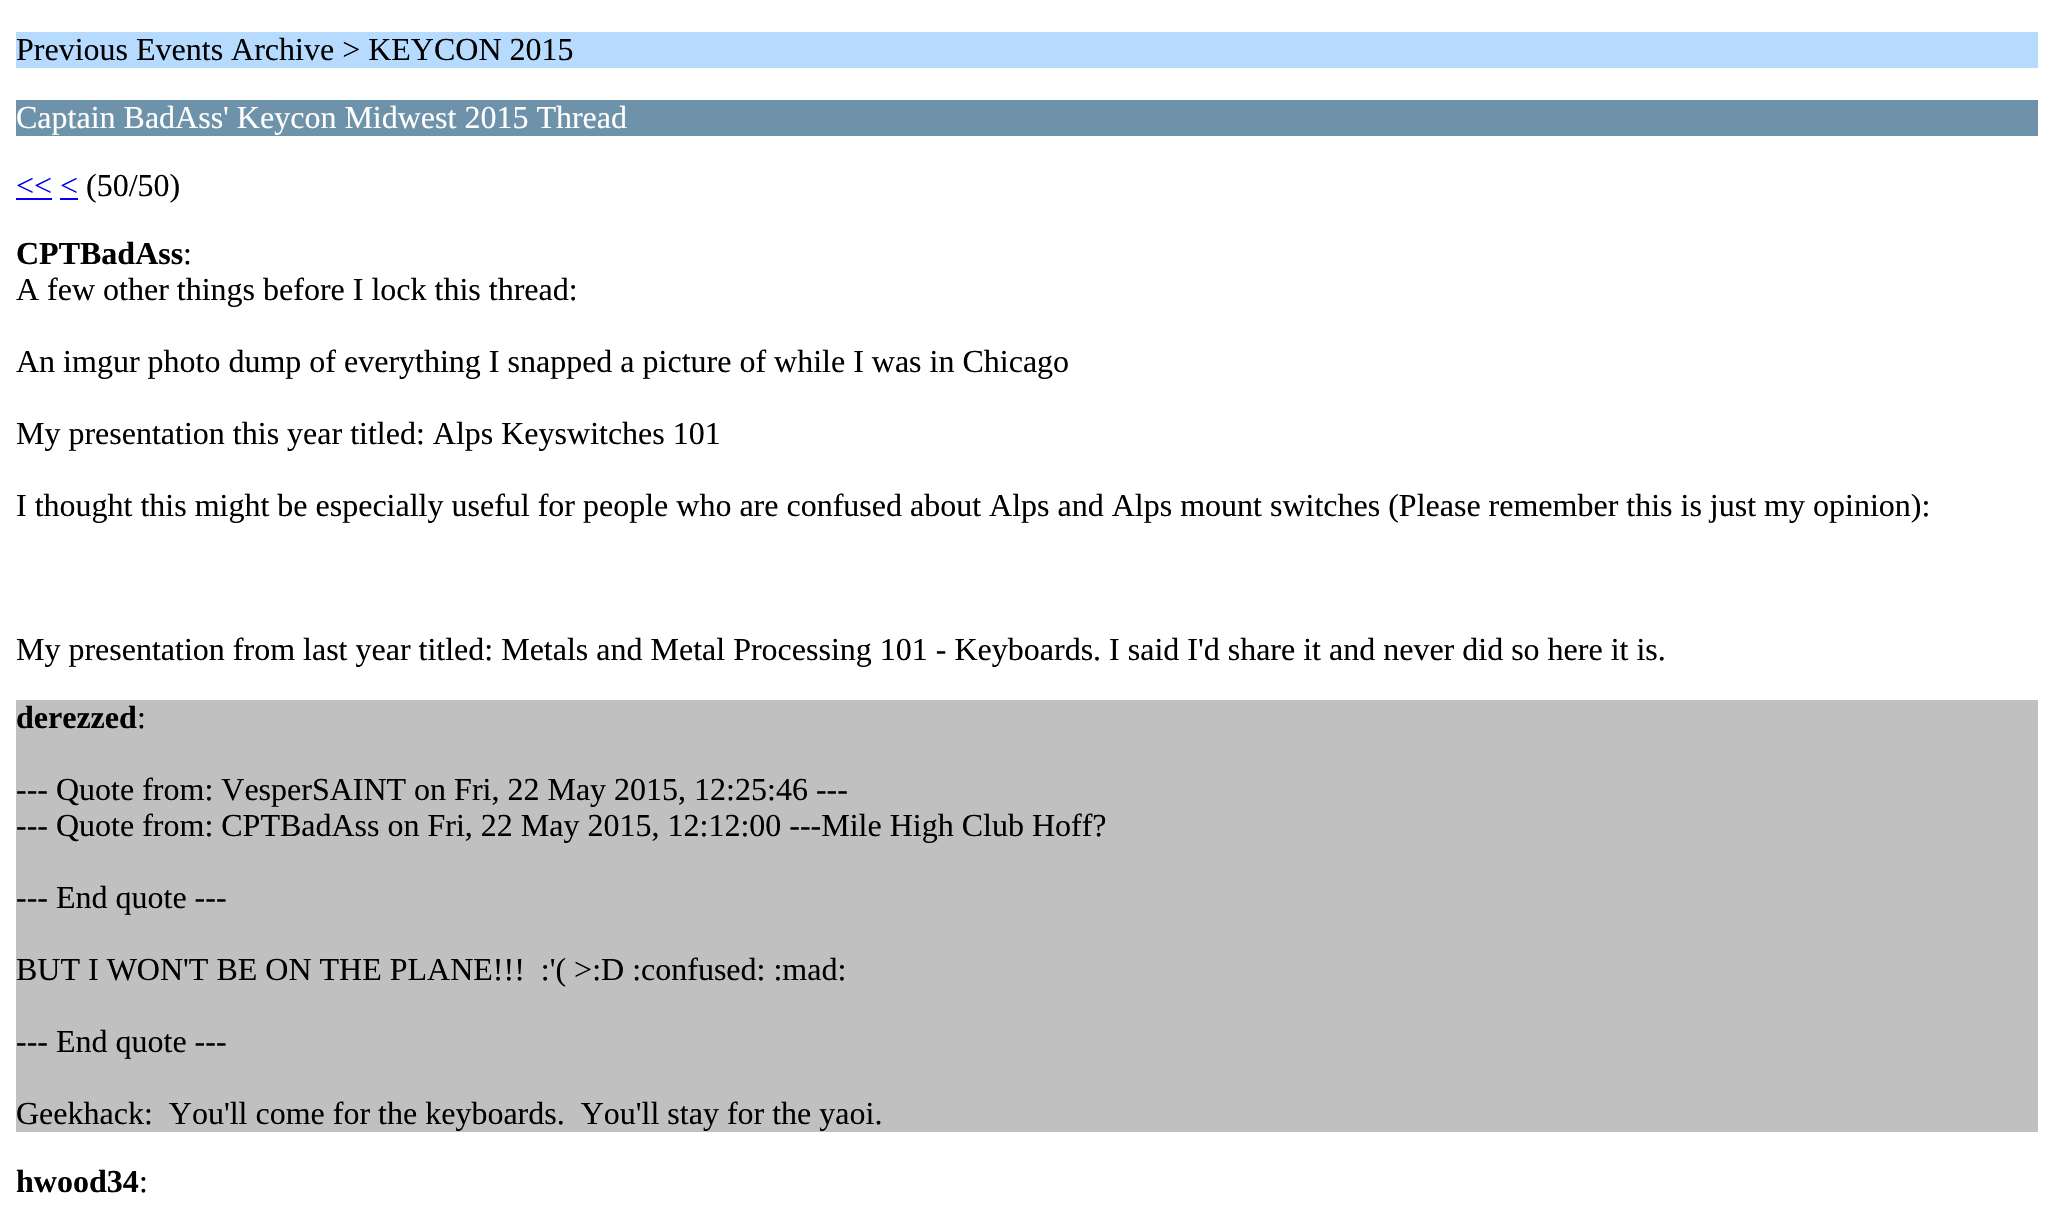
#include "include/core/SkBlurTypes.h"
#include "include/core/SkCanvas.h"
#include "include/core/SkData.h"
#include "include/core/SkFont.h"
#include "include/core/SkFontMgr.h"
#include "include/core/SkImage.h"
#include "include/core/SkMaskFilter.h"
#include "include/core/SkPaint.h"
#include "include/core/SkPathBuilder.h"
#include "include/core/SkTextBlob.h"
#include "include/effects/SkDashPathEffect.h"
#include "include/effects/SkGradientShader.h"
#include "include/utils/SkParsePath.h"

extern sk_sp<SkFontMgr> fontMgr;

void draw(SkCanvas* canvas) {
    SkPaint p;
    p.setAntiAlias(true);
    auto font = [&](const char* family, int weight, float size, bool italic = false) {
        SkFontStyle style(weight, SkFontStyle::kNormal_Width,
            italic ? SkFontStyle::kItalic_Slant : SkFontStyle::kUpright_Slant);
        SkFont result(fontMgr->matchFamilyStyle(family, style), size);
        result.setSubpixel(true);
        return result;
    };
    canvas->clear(0xFFFFFFFF);
    p.setColor(0xFFB6DBFF);
    canvas->drawRect(SkRect::MakeLTRB(16, 32, 2038, 68), p);
    auto font1 = font("Liberation Serif", 400, 32);
    p.setColor(0xFF000000);
    canvas->drawString("Previous Events Archive > KEYCON 2015", 16, 60, font1, p);
    p.setColor(0xFF6D92AA);
    canvas->drawRect(SkRect::MakeLTRB(16, 100, 2038, 136), p);
    p.setColor(0xFFFFFFFF);
    canvas->drawString("Captain BadAss' Keycon Midwest 2015 Thread", 16, 128, font1, p);
    p.setColor(0xFF0000EE);
    canvas->drawString("<< <", 16, 196, font1, p);
    canvas->drawRect(SkRect::MakeLTRB(16, 198, 52, 200), p);
    p.setColor(0xFF000000);
    canvas->drawString("(50/50)", 86, 196, font1, p);
    p.setColor(0xFF0000EE);
    canvas->drawRect(SkRect::MakeLTRB(60, 198, 78, 200), p);
    auto font2 = font("Liberation Serif", 700, 32);
    p.setColor(0xFF000000);
    canvas->drawString("CPTBadAss", 16, 264, font2, p);
    {
        const struct { const char* s; float x, y; } items[] = {
            {":", 183, 264},
            {"A few other things before I lock this thread:", 16, 300},
            {"An imgur photo dump of everything I snapped a picture of while I was in Chicago", 16, 372},
            {"My presentation this year titled: Alps Keyswitches 101", 16, 444},
            {"I thought this might be especially useful for people who are confused about Alps and Alps mount switches (Please remember this is just my opinion):", 16, 516},
            {"My presentation from last year titled: Metals and Metal Processing 101 - Keyboards. I said I'd share it and never did so here it is.", 16, 660},
        };
        for (auto [s, x, y] : items) {
            canvas->drawString(s, x, y, font1, p);
        }
    }
    p.setColor(0xFFC0C0C0);
    canvas->drawRect(SkRect::MakeLTRB(16, 700, 2038, 1132), p);
    p.setColor(0xFF000000);
    canvas->drawString("derezzed", 16, 728, font2, p);
    {
        const struct { const char* s; float x, y; } items[] = {
            {":", 137, 728},
            {"--- Quote from: VesperSAINT on Fri, 22 May 2015, 12:25:46 ---", 16, 800},
            {"--- Quote from: CPTBadAss on Fri, 22 May 2015, 12:12:00 ---Mile High Club Hoff?", 16, 836},
            {"--- End quote ---", 16, 908},
            {"BUT I WON'T BE ON THE PLANE!!!  :'( >:D :confused: :mad:", 16, 980},
            {"--- End quote ---", 16, 1052},
            {"Geekhack:  You'll come for the keyboards.  You'll stay for the yaoi.", 16, 1124},
        };
        for (auto [s, x, y] : items) {
            canvas->drawString(s, x, y, font1, p);
        }
    }
    canvas->drawString("hwood34", 16, 1192, font2, p);
    canvas->drawString(":", 139, 1192, font1, p);
}
